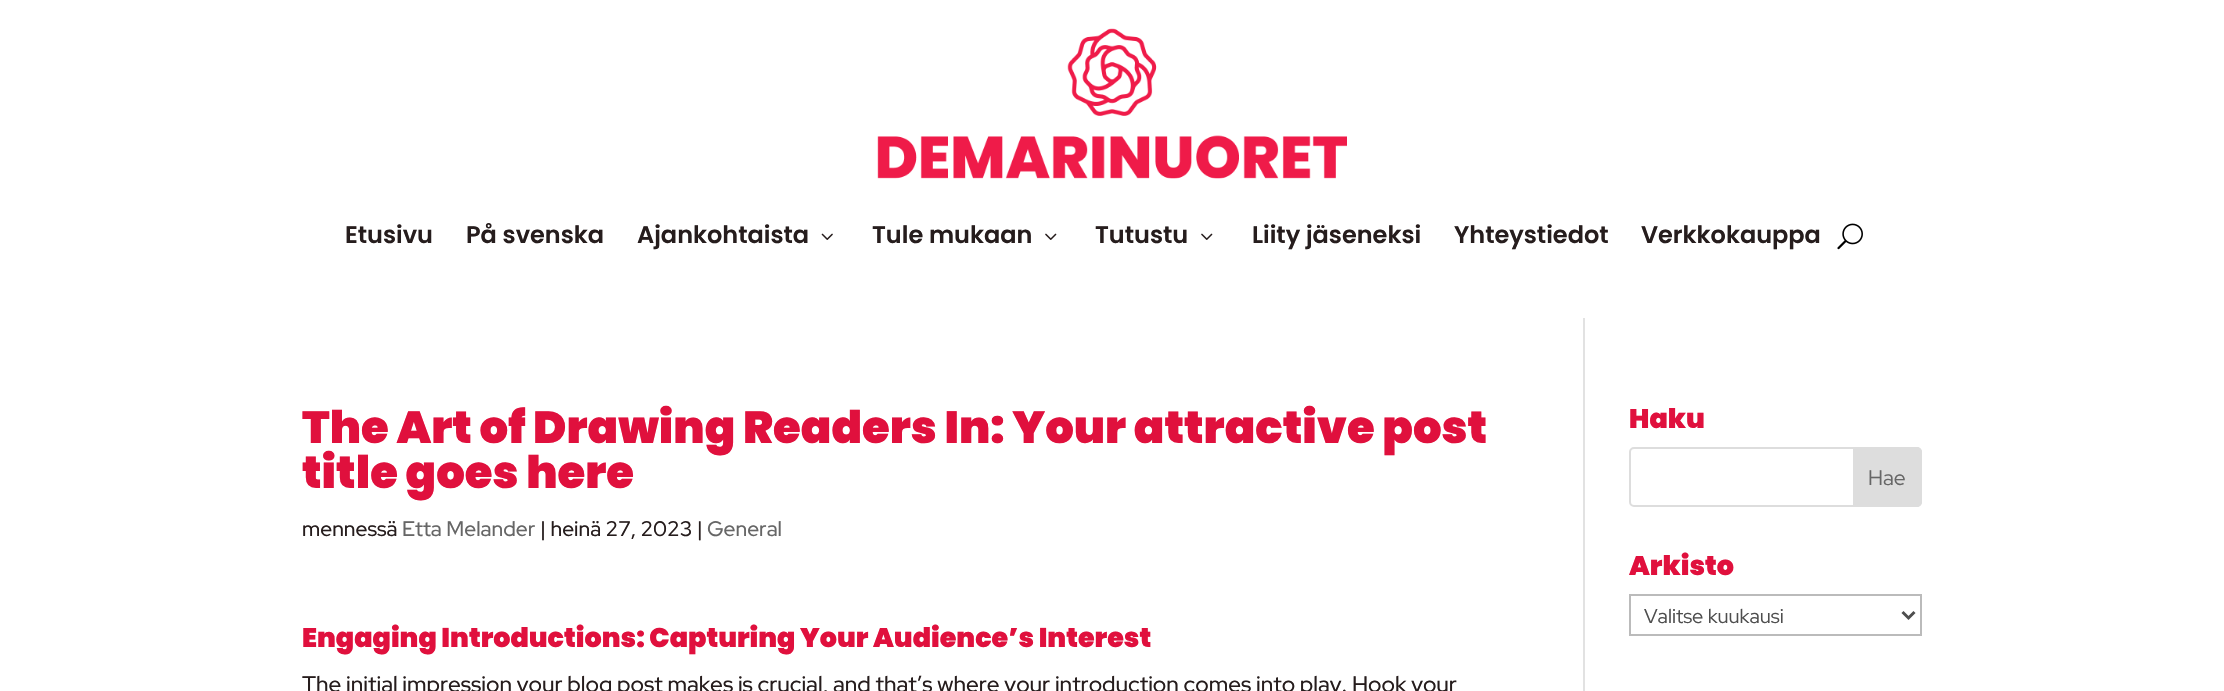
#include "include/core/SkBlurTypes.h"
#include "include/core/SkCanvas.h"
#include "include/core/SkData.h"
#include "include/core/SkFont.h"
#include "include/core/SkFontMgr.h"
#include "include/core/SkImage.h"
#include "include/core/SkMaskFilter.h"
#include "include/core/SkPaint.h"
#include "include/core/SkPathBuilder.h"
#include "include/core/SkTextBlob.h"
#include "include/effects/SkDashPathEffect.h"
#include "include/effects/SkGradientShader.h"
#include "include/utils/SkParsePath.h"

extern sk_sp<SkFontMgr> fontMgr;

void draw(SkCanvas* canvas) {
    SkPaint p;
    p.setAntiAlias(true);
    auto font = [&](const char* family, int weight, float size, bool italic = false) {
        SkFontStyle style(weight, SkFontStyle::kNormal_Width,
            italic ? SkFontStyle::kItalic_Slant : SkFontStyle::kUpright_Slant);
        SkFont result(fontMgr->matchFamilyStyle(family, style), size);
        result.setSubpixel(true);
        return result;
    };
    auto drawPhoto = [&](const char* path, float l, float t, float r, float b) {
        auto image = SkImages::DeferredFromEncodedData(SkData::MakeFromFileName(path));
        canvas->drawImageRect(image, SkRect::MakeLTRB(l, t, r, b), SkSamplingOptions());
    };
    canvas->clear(0xFFFFFFFF);
    drawPhoto("media/1.png", 877, 28, 1347, 179);
    auto font1 = font("Poppins", 600, 24);
    p.setColor(0xFF261D1D);
    {
        const struct { const char* s; float x, y; } items[] = {
            {"Etusivu", 345, 243},
            {"På svenska", 466, 243},
            {"Ajankohtaista", 637, 243},
        };
        for (auto [s, x, y] : items) {
            canvas->drawString(s, x, y, font1, p);
        }
    }
    drawPhoto("media/2.png", 821, 233, 833, 240);
    canvas->drawString("Tule mukaan", 872, 243, font1, p);
    drawPhoto("media/3.png", 1045, 233, 1057, 240);
    canvas->drawString("Tutustu", 1095, 243, font1, p);
    drawPhoto("media/3.png", 1201, 233, 1213, 240);
    {
        const struct { const char* s; float x, y; } items[] = {
            {"Liity jäseneksi", 1252, 243},
            {"Yhteystiedot", 1454, 243},
            {"Verkkokauppa", 1641, 243},
        };
        for (auto [s, x, y] : items) {
            canvas->drawString(s, x, y, font1, p);
        }
    }
    drawPhoto("media/4.png", 1837, 223, 1863, 250);
    p.setColor(0xFFE2E2E2);
    canvas->drawRect(SkRect::MakeLTRB(1583, 318, 1585, 691), p);
    auto font2 = font("Poppins", 900, 45);
    p.setColor(0xFFE0103D);
    canvas->drawString("The Art of Drawing Readers In: Your attractive post", 302, 443, font2, p);
    canvas->drawString("title goes here", 302, 488, font2, p);
    auto font3 = font("Red Hat Display", 500, 21);
    p.setColor(0xFF261D1D);
    canvas->drawString("mennessä", 302, 536, font3, p);
    p.setColor(0xFF666666);
    canvas->drawString("Etta Melander", 402, 536, font3, p);
    p.setColor(0xFF261D1D);
    canvas->drawString("| heinä 27, 2023 |", 540, 536, font3, p);
    p.setColor(0xFF666666);
    canvas->drawString("General", 707, 536, font3, p);
    auto font4 = font("Poppins", 900, 27);
    p.setColor(0xFFE0103D);
    canvas->drawString("Engaging Introductions: Capturing Your Audience’s Interest", 302, 647, font4, p);
    auto font5 = font("Red Hat Display", 500, 22.5f);
    p.setColor(0xFF261D1D);
    canvas->drawString("The initial impression your blog post makes is crucial, and that’s where your introduction comes into play. Hook your", 302, 692, font5, p);
    p.setColor(0xFFE0103D);
    canvas->drawString("Haku", 1629, 428, font4, p);
    p.setStyle(SkPaint::kStroke_Style);
    p.setStrokeWidth(2);
    p.setColor(0xFFDDDDDD);
    canvas->drawRoundRect(SkRect::MakeLTRB(1630, 448, 1921, 506), 4, 4, p);
    p.setStyle(SkPaint::kFill_Style);
    canvas->drawPath(SkPathBuilder().moveTo(1854, 448).lineTo(1917, 448).cubicTo(1919, 448, 1921, 450, 1921, 452).lineTo(1921, 502).cubicTo(1921, 504, 1919, 506, 1917, 506).lineTo(1854, 506).close().detach(), p);
    p.setStyle(SkPaint::kStroke_Style);
    canvas->drawPath(SkPathBuilder().moveTo(1854, 448).lineTo(1917, 448).cubicTo(1919, 448, 1921, 450, 1921, 452).lineTo(1921, 502).cubicTo(1921, 504, 1919, 506, 1917, 506).lineTo(1854, 506).close().detach(), p);
    auto font6 = font("Red Hat Display", 400, 21);
    p.setStyle(SkPaint::kFill_Style);
    p.setColor(0xFF666666);
    canvas->drawString("Hae", 1868, 485, font6, p);
    p.setColor(0xFFE0103D);
    canvas->drawString("Arkisto", 1629, 575, font4, p);
    p.setStyle(SkPaint::kStroke_Style);
    p.setColor(0xFFBBBBBB);
    canvas->drawRect(SkRect::MakeLTRB(1630, 595, 1921, 635), p);
    p.setStrokeWidth(3);
    p.setColor(0xFF4E4E4E);
    canvas->drawPath(SkPathBuilder().moveTo(1902.5f, 612).lineTo(1908.5f, 618).lineTo(1914.5f, 612).detach(), p);
    auto font7 = font("Red Hat Display", 400, 20);
    p.setStyle(SkPaint::kFill_Style);
    canvas->drawString("Valitse kuukausi", 1644, 623, font7, p);
}
